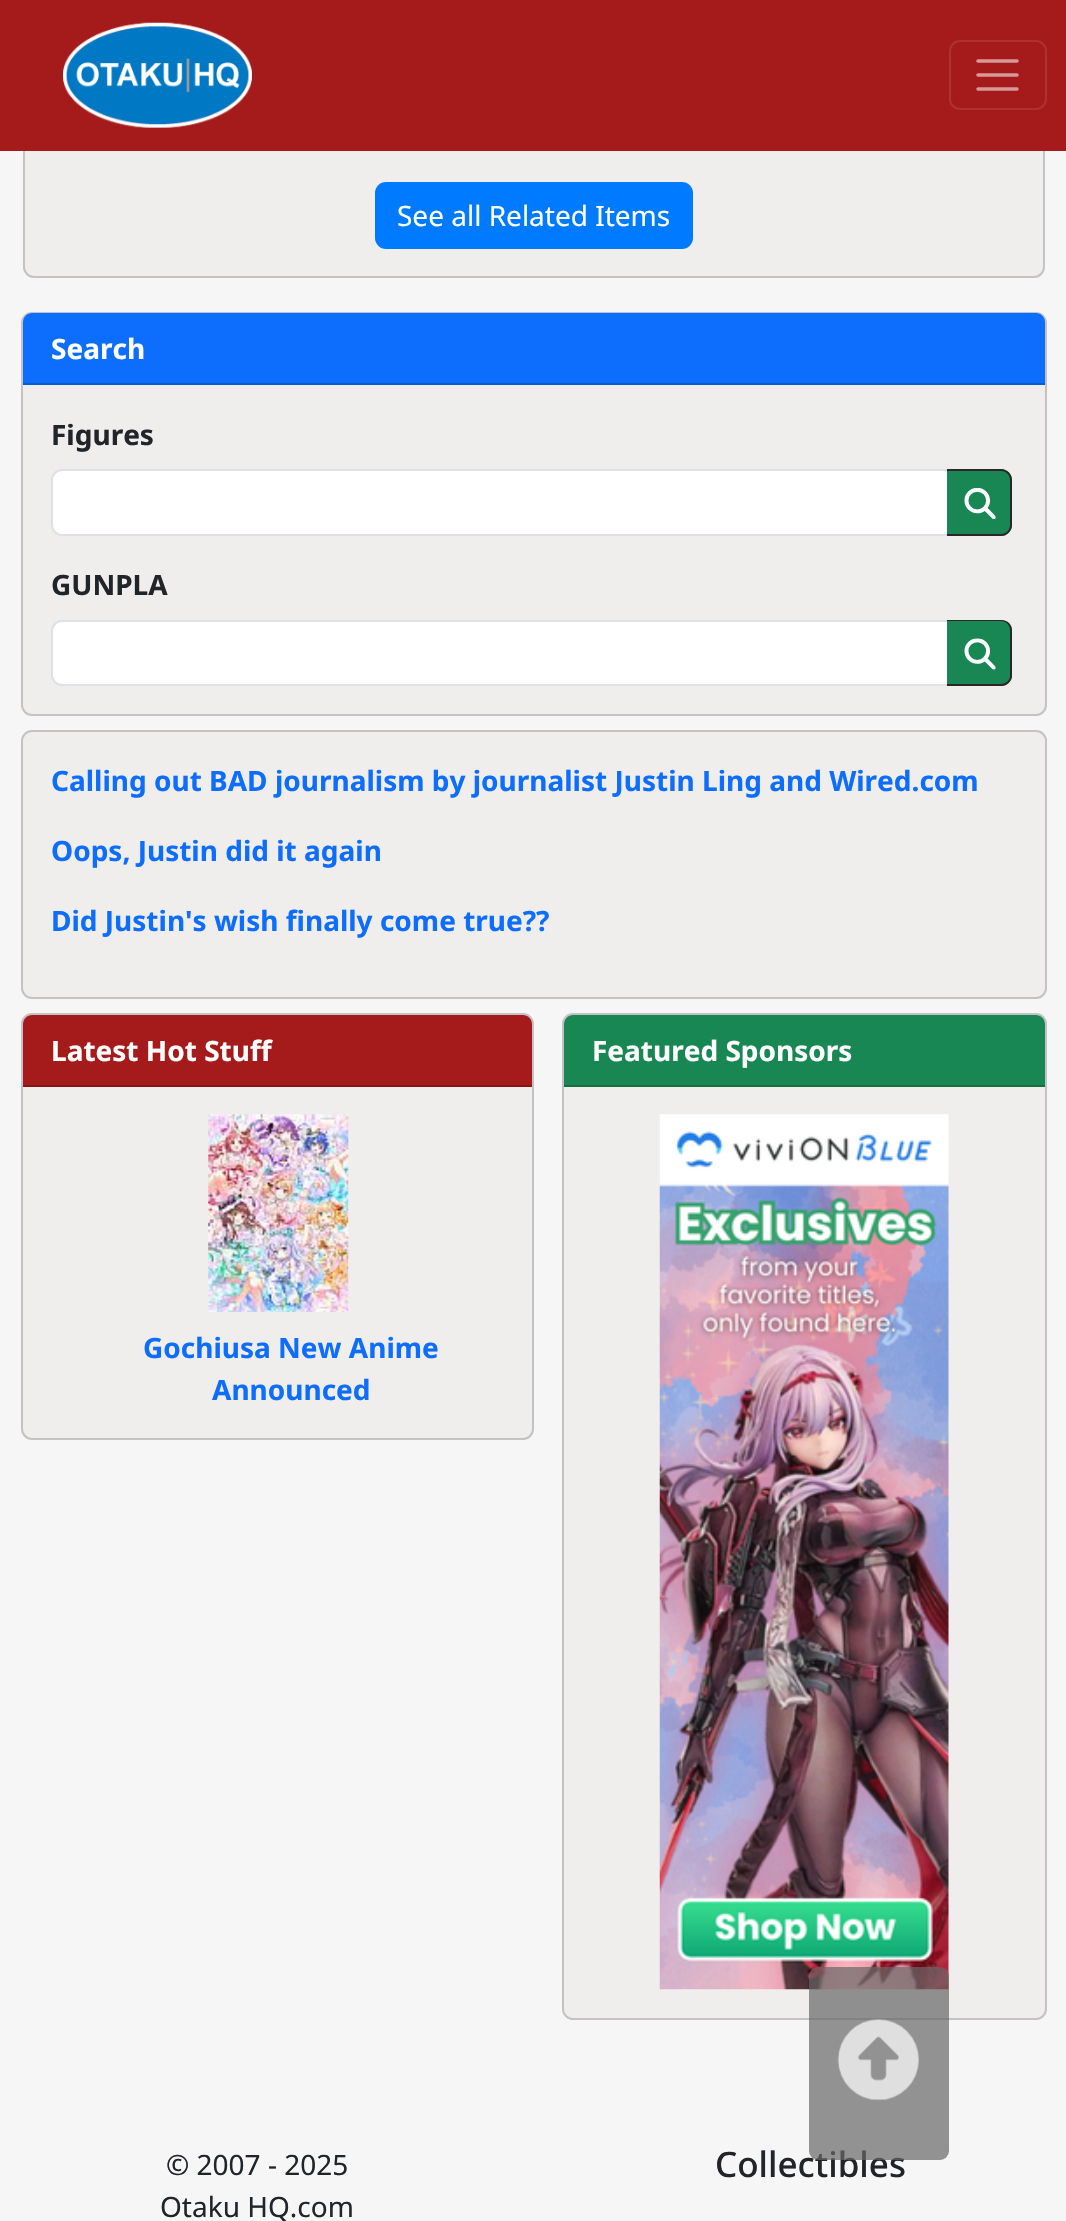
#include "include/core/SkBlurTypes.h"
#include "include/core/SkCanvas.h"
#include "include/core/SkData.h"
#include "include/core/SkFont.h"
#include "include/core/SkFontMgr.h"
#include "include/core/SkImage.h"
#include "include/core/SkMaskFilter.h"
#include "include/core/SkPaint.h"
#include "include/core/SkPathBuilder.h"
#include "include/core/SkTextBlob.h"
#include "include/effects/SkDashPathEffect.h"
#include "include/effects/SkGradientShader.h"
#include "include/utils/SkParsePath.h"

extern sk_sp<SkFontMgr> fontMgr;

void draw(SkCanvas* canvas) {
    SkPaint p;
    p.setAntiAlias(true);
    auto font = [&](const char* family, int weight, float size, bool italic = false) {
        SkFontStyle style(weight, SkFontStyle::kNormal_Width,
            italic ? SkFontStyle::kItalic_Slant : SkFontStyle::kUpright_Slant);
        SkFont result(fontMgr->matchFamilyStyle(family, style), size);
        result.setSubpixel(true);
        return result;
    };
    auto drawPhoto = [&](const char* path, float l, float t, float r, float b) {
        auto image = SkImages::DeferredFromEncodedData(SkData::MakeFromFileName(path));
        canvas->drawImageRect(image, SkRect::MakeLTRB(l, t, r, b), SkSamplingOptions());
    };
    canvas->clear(0xFFF7F6F6);
    p.setColor(0xFFF0EDED);
    canvas->drawRoundRect(SkRect::MakeLTRB(23, -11, 1045, 278), 11, 11, p);
    p.setStyle(SkPaint::kStroke_Style);
    p.setStrokeWidth(2);
    p.setColor(0x2E000000);
    canvas->drawRoundRect(SkRect::MakeLTRB(24, -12, 1044, 277), 10, 10, p);
    p.setStyle(SkPaint::kFill_Style);
    p.setColor(0xFFA51A1B);
    canvas->drawRect(SkRect::MakeLTRB(0, 0, 1066, 151), p);
    drawPhoto("media/1.png", 63, 22, 252, 128);
    p.setStyle(SkPaint::kStroke_Style);
    p.setColor(0xFFAE3132);
    canvas->drawRoundRect(SkRect::MakeLTRB(950, 41, 1046, 109), 10, 10, p);
    p.setStrokeWidth(3.5f);
    p.setStrokeCap(SkPaint::kRound_Cap);
    p.setColor(0xFFD79898);
    canvas->drawPath(SkPathBuilder().moveTo(978, 61).lineTo(1017, 61).moveTo(978, 75).lineTo(1017, 75).moveTo(978, 89).lineTo(1017, 89).detach(), p);
    p.setStyle(SkPaint::kFill_Style);
    p.setColor(0xFF007BFF);
    canvas->drawRoundRect(SkRect::MakeLTRB(375, 182, 693, 249), 11, 11, p);
    auto font1 = font("Noto Sans", 400, 28);
    p.setColor(0xFFFFFFFF);
    canvas->drawString("See all Related Items", 397, 226, font1, p);
    p.setColor(0xFFF0EDED);
    canvas->drawRoundRect(SkRect::MakeLTRB(21, 312, 1047, 716), 11, 11, p);
    p.setStyle(SkPaint::kStroke_Style);
    p.setStrokeWidth(2);
    p.setStrokeCap(SkPaint::kButt_Cap);
    p.setColor(0x2E000000);
    canvas->drawRoundRect(SkRect::MakeLTRB(22, 313, 1046, 715), 10, 10, p);
    p.setStyle(SkPaint::kFill_Style);
    p.setColor(0xFF0D6EFD);
    canvas->drawPath(SkPathBuilder().moveTo(32, 313).lineTo(1036, 313).cubicTo(1041, 313, 1045, 317, 1045, 322).lineTo(1045, 385).lineTo(23, 385).lineTo(23, 322).cubicTo(23, 317, 27, 313, 32, 313).close().detach(), p);
    p.setColor(0xFF0B5BD0);
    canvas->drawRect(SkRect::MakeLTRB(23, 383, 1045, 385), p);
    auto font2 = font("Noto Sans", 700, 28);
    p.setColor(0xFFFFFFFF);
    canvas->drawString("Search", 51, 359, font2, p);
    p.setColor(0xFF212529);
    canvas->drawString("Figures", 51, 445, font2, p);
    p.setColor(0xFFFFFFFF);
    canvas->drawPath(SkPathBuilder().moveTo(62, 470).lineTo(948, 470).lineTo(948, 535).lineTo(62, 535).cubicTo(56.5f, 535, 52, 530.5f, 52, 525).lineTo(52, 480).cubicTo(52, 474.5f, 56.5f, 470, 62, 470).close().detach(), p);
    p.setStyle(SkPaint::kStroke_Style);
    p.setColor(0xFFDEE2E6);
    canvas->drawPath(SkPathBuilder().moveTo(62, 470).lineTo(948, 470).lineTo(948, 535).lineTo(62, 535).cubicTo(56.5f, 535, 52, 530.5f, 52, 525).lineTo(52, 480).cubicTo(52, 474.5f, 56.5f, 470, 62, 470).close().detach(), p);
    p.setStyle(SkPaint::kFill_Style);
    p.setColor(0xFF198754);
    canvas->drawPath(SkPathBuilder().moveTo(947, 469).lineTo(1001, 469).cubicTo(1007, 469, 1012, 474, 1012, 480).lineTo(1012, 525).cubicTo(1012, 531, 1007, 536, 1001, 536).lineTo(947, 536).close().detach(), p);
    p.setColor(0xFF2E2525);
    canvas->drawPath(SkPathBuilder(SkPathFillType::kEvenOdd).moveTo(947, 469).lineTo(1001, 469).cubicTo(1007, 469, 1012, 474, 1012, 480).lineTo(1012, 525).cubicTo(1012, 531, 1007, 536, 1001, 536).lineTo(947, 536).close().moveTo(947, 471).lineTo(1001, 471).cubicTo(1006, 471, 1010, 475, 1010, 480).lineTo(1010, 525).cubicTo(1010, 530, 1006, 534, 1001, 534).lineTo(947, 534).close().detach(), p);
    drawPhoto("media/2.png", 964, 488, 996, 519);
    p.setColor(0xFF212529);
    canvas->drawString("GUNPLA", 51, 595, font2, p);
    p.setColor(0xFFFFFFFF);
    canvas->drawPath(SkPathBuilder().moveTo(62, 621).lineTo(948, 621).lineTo(948, 685).lineTo(62, 685).cubicTo(56.5f, 685, 52, 680.5f, 52, 675).lineTo(52, 631).cubicTo(52, 625.5f, 56.5f, 621, 62, 621).close().detach(), p);
    p.setStyle(SkPaint::kStroke_Style);
    p.setColor(0xFFDEE2E6);
    canvas->drawPath(SkPathBuilder().moveTo(62, 621).lineTo(948, 621).lineTo(948, 685).lineTo(62, 685).cubicTo(56.5f, 685, 52, 680.5f, 52, 675).lineTo(52, 631).cubicTo(52, 625.5f, 56.5f, 621, 62, 621).close().detach(), p);
    p.setStyle(SkPaint::kFill_Style);
    p.setColor(0xFF198754);
    canvas->drawPath(SkPathBuilder().moveTo(947, 620).lineTo(1001, 620).cubicTo(1007, 620, 1012, 625, 1012, 631).lineTo(1012, 675).cubicTo(1012, 681, 1007, 686, 1001, 686).lineTo(947, 686).close().detach(), p);
    p.setColor(0xFF2E2525);
    canvas->drawPath(SkPathBuilder(SkPathFillType::kEvenOdd).moveTo(947, 620).lineTo(1001, 620).cubicTo(1007, 620, 1012, 624, 1012, 630).lineTo(1012, 676).cubicTo(1012, 681, 1007, 686, 1001, 686).lineTo(947, 686).close().moveTo(947, 621).lineTo(1001, 621).cubicTo(1006, 621, 1010, 625, 1010, 630).lineTo(1010, 676).cubicTo(1010, 680, 1006, 684, 1001, 684).lineTo(947, 684).close().detach(), p);
    drawPhoto("media/3.png", 964, 638, 996, 670);
    p.setColor(0xFFF0EDED);
    canvas->drawRoundRect(SkRect::MakeLTRB(21, 730, 1047, 999), 11, 11, p);
    p.setStyle(SkPaint::kStroke_Style);
    p.setColor(0x2E000000);
    canvas->drawRoundRect(SkRect::MakeLTRB(22, 731, 1046, 998), 10, 10, p);
    p.setStyle(SkPaint::kFill_Style);
    p.setColor(0xFF0D6EFD);
    {
        const struct { const char* s; float x, y; } items[] = {
            {"Calling out BAD journalism by journalist Justin Ling and Wired.com", 51, 791},
            {"Oops, Justin did it again", 51, 861},
            {"Did Justin's wish finally come true?\077", 51, 931},
        };
        for (auto [s, x, y] : items) {
            canvas->drawString(s, x, y, font2, p);
        }
    }
    p.setColor(0xFFF0EDED);
    canvas->drawRoundRect(SkRect::MakeLTRB(21, 1013, 534, 1440), 11, 11, p);
    p.setStyle(SkPaint::kStroke_Style);
    p.setColor(0x2E000000);
    canvas->drawRoundRect(SkRect::MakeLTRB(22, 1014, 533, 1439), 10, 10, p);
    p.setStyle(SkPaint::kFill_Style);
    p.setColor(0xFFA51A1B);
    canvas->drawPath(SkPathBuilder().moveTo(32, 1015).lineTo(523, 1015).cubicTo(528, 1015, 532, 1019, 532, 1024).lineTo(532, 1087).lineTo(23, 1087).lineTo(23, 1024).cubicTo(23, 1019, 27, 1015, 32, 1015).close().detach(), p);
    p.setColor(0xFF881516);
    canvas->drawRect(SkRect::MakeLTRB(23, 1085, 532, 1087), p);
    p.setColor(0xFFFFFFFF);
    canvas->drawString("Latest Hot Stuff", 51, 1061, font2, p);
    drawPhoto("media/4.png", 208, 1114, 349, 1312);
    p.setColor(0xFF0D6EFD);
    canvas->drawString("Gochiusa New Anime", 143, 1358, font2, p);
    canvas->drawString("Announced", 212, 1400, font2, p);
    p.setColor(0xFFF0EDED);
    canvas->drawRoundRect(SkRect::MakeLTRB(562, 1013, 1047, 2020), 11, 11, p);
    p.setStyle(SkPaint::kStroke_Style);
    p.setColor(0x2E000000);
    canvas->drawRoundRect(SkRect::MakeLTRB(563, 1014, 1046, 2019), 10, 10, p);
    p.setStyle(SkPaint::kFill_Style);
    p.setColor(0xFF198754);
    canvas->drawPath(SkPathBuilder().moveTo(573, 1015).lineTo(1036, 1015).cubicTo(1041, 1015, 1045, 1019, 1045, 1024).lineTo(1045, 1087).lineTo(564, 1087).lineTo(564, 1024).cubicTo(564, 1019, 568, 1015, 573, 1015).close().detach(), p);
    p.setColor(0xFF156F45);
    canvas->drawRect(SkRect::MakeLTRB(564, 1085, 1045, 1087), p);
    p.setColor(0xFFFFFFFF);
    canvas->drawString("Featured Sponsors", 592, 1061, font2, p);
    drawPhoto("media/5.png", 659, 1114, 949, 1990);
    auto font3 = font("Noto Sans", 500, 35);
    p.setColor(0xFF212529);
    canvas->drawString("Collectibles", 715, 2177, font3, p);
    p.setColor(0xB3666666);
    canvas->drawRoundRect(SkRect::MakeLTRB(809, 1967, 949, 2160), 9, 9, p);
    drawPhoto("media/6.png", 837, 2019, 919, 2101);
    p.setColor(0xFF212529);
    canvas->drawString("© 2007 - 2025", 166, 2175, font1, p);
    canvas->drawString("Otaku HQ.com", 160, 2217, font1, p);
}
